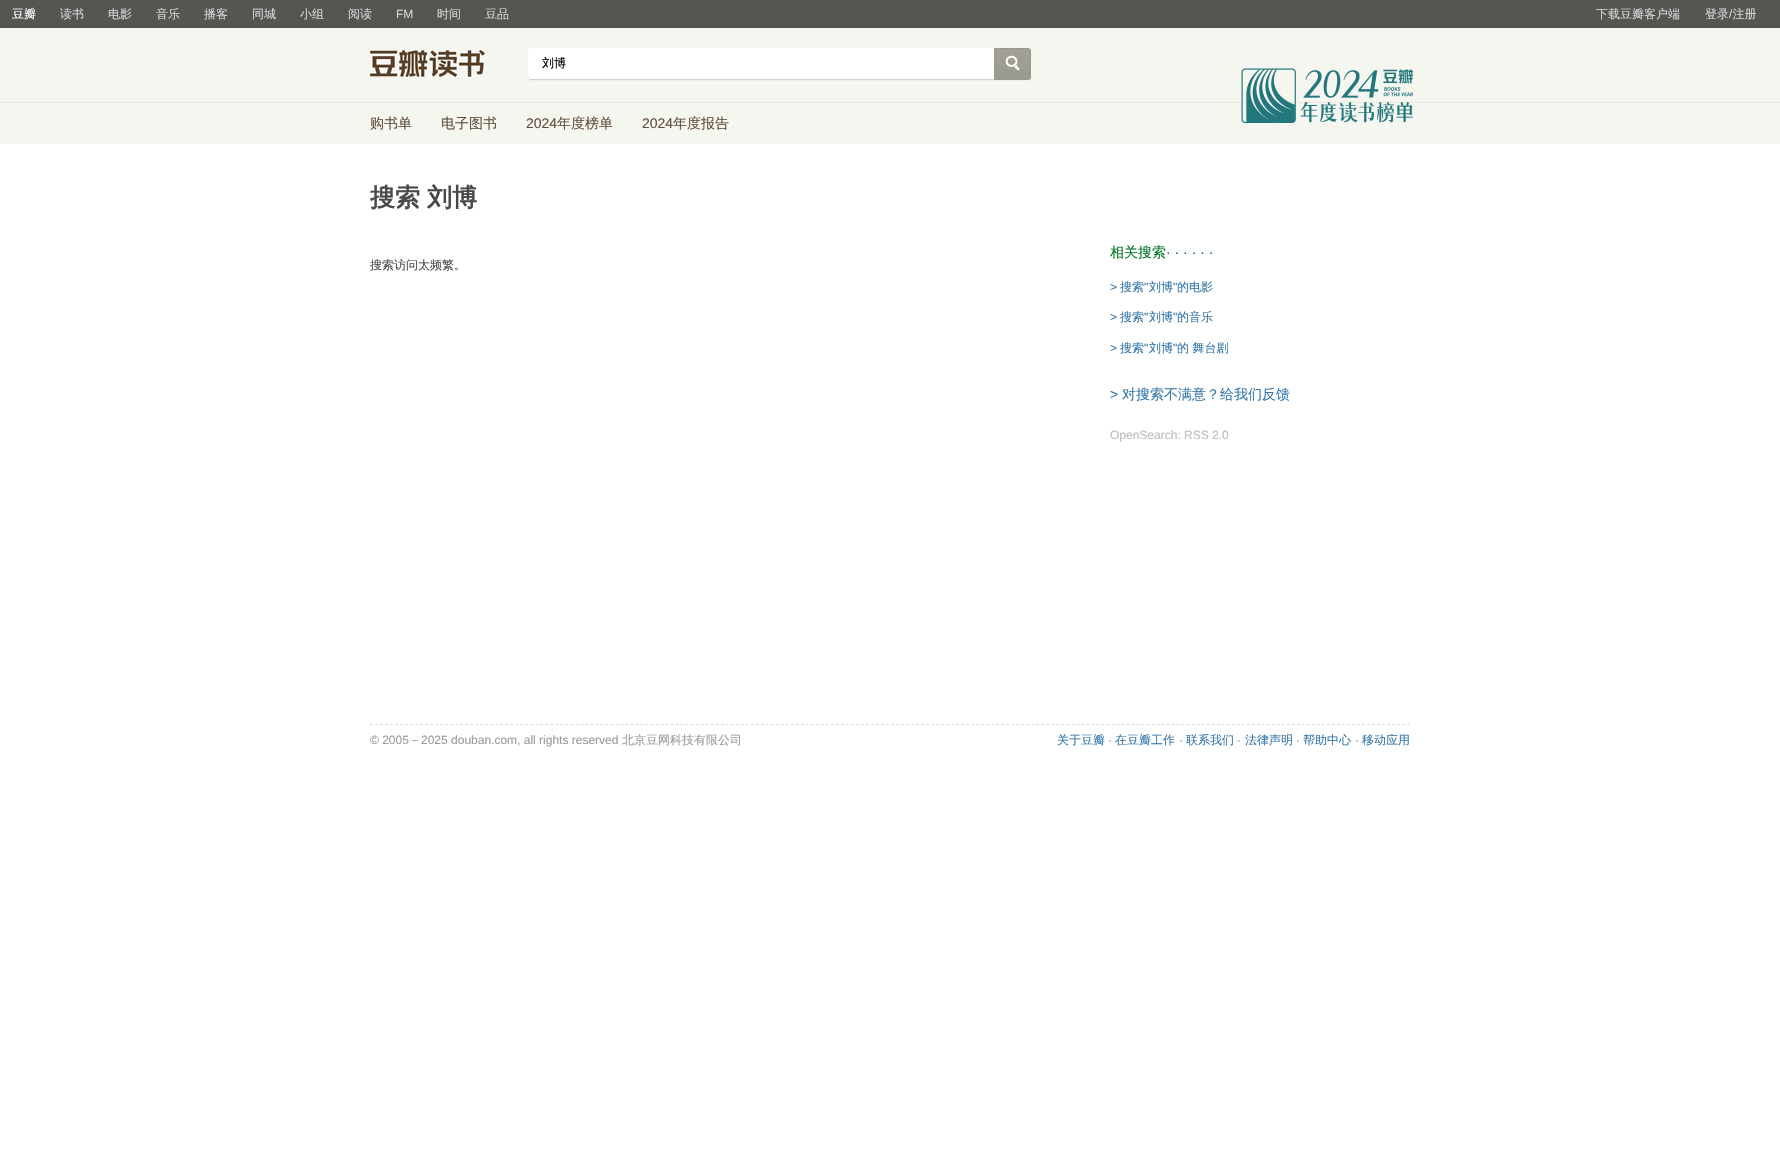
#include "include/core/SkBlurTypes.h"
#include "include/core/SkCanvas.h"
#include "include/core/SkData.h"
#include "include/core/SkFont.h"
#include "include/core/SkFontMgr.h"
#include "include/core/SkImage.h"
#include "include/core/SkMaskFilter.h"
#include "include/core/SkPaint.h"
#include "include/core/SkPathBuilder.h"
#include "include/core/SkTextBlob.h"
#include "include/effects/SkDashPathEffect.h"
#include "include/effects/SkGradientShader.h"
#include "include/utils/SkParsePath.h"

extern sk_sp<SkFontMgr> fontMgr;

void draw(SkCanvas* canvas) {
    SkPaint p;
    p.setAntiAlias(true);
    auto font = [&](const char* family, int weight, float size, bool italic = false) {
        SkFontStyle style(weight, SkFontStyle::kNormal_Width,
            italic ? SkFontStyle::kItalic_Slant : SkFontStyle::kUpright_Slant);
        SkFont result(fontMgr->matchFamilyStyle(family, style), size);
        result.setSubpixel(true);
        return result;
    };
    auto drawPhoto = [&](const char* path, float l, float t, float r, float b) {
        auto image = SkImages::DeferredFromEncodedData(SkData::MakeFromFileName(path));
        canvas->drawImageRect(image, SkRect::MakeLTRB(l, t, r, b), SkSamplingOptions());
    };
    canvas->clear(0xFFFFFFFF);
    p.setColor(0xFF545652);
    canvas->drawRect(SkRect::MakeLTRB(0, 0, 1780, 28), p);
    auto font1 = font("WenQuanYi Zen Hei", 500, 12);
    p.setColor(0xFFFFFFFF);
    canvas->drawString("豆瓣", 12, 18, font1, p);
    p.setColor(0xFFD5D5D5);
    {
        const struct { const char* s; float x, y; } items[] = {
            {"读书", 60, 18},
            {"电影", 108, 18},
            {"音乐", 156, 18},
            {"播客", 204, 18},
            {"同城", 252, 18},
            {"小组", 300, 18},
            {"阅读", 348, 18},
        };
        for (auto [s, x, y] : items) {
            canvas->drawString(s, x, y, font1, p);
        }
    }
    auto font2 = font("Liberation Sans", 400, 12);
    canvas->drawString("FM", 396, 18, font2, p);
    {
        const struct { const char* s; float x, y; } items[] = {
            {"时间", 437, 18},
            {"豆品", 485, 18},
            {"下载豆瓣客户端", 1596, 18},
            {"登录 注册", 1705, 18},
        };
        for (auto [s, x, y] : items) {
            canvas->drawString(s, x, y, font1, p);
        }
    }
    canvas->drawString("/", 1729, 18, font2, p);
    p.setColor(0xFFF6F6F1);
    canvas->drawRect(SkRect::MakeLTRB(0, 28, 1780, 144), p);
    p.setColor(0xFFE9E9E2);
    canvas->drawRect(SkRect::MakeLTRB(0, 102, 1780, 103), p);
    drawPhoto("media/1.png", 370, 50, 485, 77);
    drawPhoto("media/2.png", 528, 48, 994, 81);
    p.setColor(0xFF000000);
    canvas->drawString("刘博", 542, 67, font1, p);
    drawPhoto("media/3.png", 994, 48, 1031, 81);
    auto font3 = font("WenQuanYi Zen Hei", 500, 14);
    p.setColor(0xFF614E3C);
    canvas->drawString("购书单", 370, 128, font3, p);
    canvas->drawString("电子图书", 441, 128, font3, p);
    auto font4 = font("Liberation Sans", 400, 14);
    canvas->drawString("2024", 526, 128, font4, p);
    canvas->drawString("年度榜单", 557, 128, font3, p);
    canvas->drawString("2024", 642, 128, font4, p);
    canvas->drawString("年度报告", 673, 128, font3, p);
    drawPhoto("media/4.png", 1241, 68, 1413, 123);
    auto font5 = font("WenQuanYi Zen Hei", 700, 25);
    p.setColor(0xFF494949);
    canvas->drawString("搜索", 370, 206, font5, p);
    canvas->drawString("刘博", 427, 206, font5, p);
    canvas->drawString("搜索访问太频繁。", 370, 269, font1, p);
    p.setColor(0xFF007722);
    canvas->drawString("相关搜索", 1110, 257, font3, p);
    canvas->drawString("· · · · · ·", 1166, 257, font4, p);
    p.setColor(0xFF3377AA);
    canvas->drawString(">", 1110, 291, font2, p);
    canvas->drawString("搜索", 1120, 291, font1, p);
    canvas->drawString("\"", 1144, 291, font2, p);
    canvas->drawString("刘博", 1149, 291, font1, p);
    canvas->drawString("\"", 1173, 291, font2, p);
    canvas->drawString("的电影", 1177, 291, font1, p);
    canvas->drawString(">", 1110, 321, font2, p);
    canvas->drawString("搜索", 1120, 321, font1, p);
    canvas->drawString("\"", 1144, 321, font2, p);
    canvas->drawString("刘博", 1149, 321, font1, p);
    canvas->drawString("\"", 1173, 321, font2, p);
    canvas->drawString("的音乐", 1177, 321, font1, p);
    canvas->drawString(">", 1110, 352, font2, p);
    canvas->drawString("搜索", 1120, 352, font1, p);
    canvas->drawString("\"", 1144, 352, font2, p);
    canvas->drawString("刘博", 1149, 352, font1, p);
    canvas->drawString("\"", 1173, 352, font2, p);
    canvas->drawString("的 舞台剧", 1177, 352, font1, p);
    canvas->drawString(">", 1110, 399, font4, p);
    canvas->drawString("对搜索不满意？给我们反馈", 1122, 399, font3, p);
    p.setColor(0xFFBBBBBB);
    canvas->drawString("OpenSearch: RSS 2.0", 1110, 439, font2, p);
    p.setStyle(SkPaint::kStroke_Style);
    p.setStrokeWidth(1);
    p.setColor(0xFFDDDDDD);
    p.setPathEffect(SkDashPathEffect::Make({{3, 2.01f}}, 0));
    canvas->drawPath(SkPathBuilder().moveTo(370, 724.5f).lineTo(1410, 724.5f).detach(), p);
    p.setPathEffect(nullptr);
    p.setStyle(SkPaint::kFill_Style);
    p.setColor(0xFF999999);
    canvas->drawString("© 2005", 370, 744, font2, p);
    canvas->drawString("－", 409, 744, font1, p);
    canvas->drawString("2025 douban.com, all rights reserved", 421, 744, font2, p);
    canvas->drawString("北京豆网科技有限公司", 622, 744, font1, p);
    p.setColor(0xFF3377AA);
    canvas->drawString("关于豆瓣", 1057, 744, font1, p);
    p.setColor(0xFF999999);
    canvas->drawString("·", 1108, 744, font2, p);
    p.setColor(0xFF3377AA);
    canvas->drawString("在豆瓣工作", 1115, 744, font1, p);
    p.setColor(0xFF999999);
    canvas->drawString("·", 1179, 744, font2, p);
    p.setColor(0xFF3377AA);
    canvas->drawString("联系我们", 1186, 744, font1, p);
    p.setColor(0xFF999999);
    canvas->drawString("·", 1237, 744, font2, p);
    p.setColor(0xFF3377AA);
    canvas->drawString("法律声明", 1245, 744, font1, p);
    p.setColor(0xFF999999);
    canvas->drawString("·", 1296, 744, font2, p);
    p.setColor(0xFF3377AA);
    canvas->drawString("帮助中心", 1303, 744, font1, p);
    p.setColor(0xFF999999);
    canvas->drawString("·", 1355, 744, font2, p);
    p.setColor(0xFF3377AA);
    canvas->drawString("移动应用", 1362, 744, font1, p);
}
